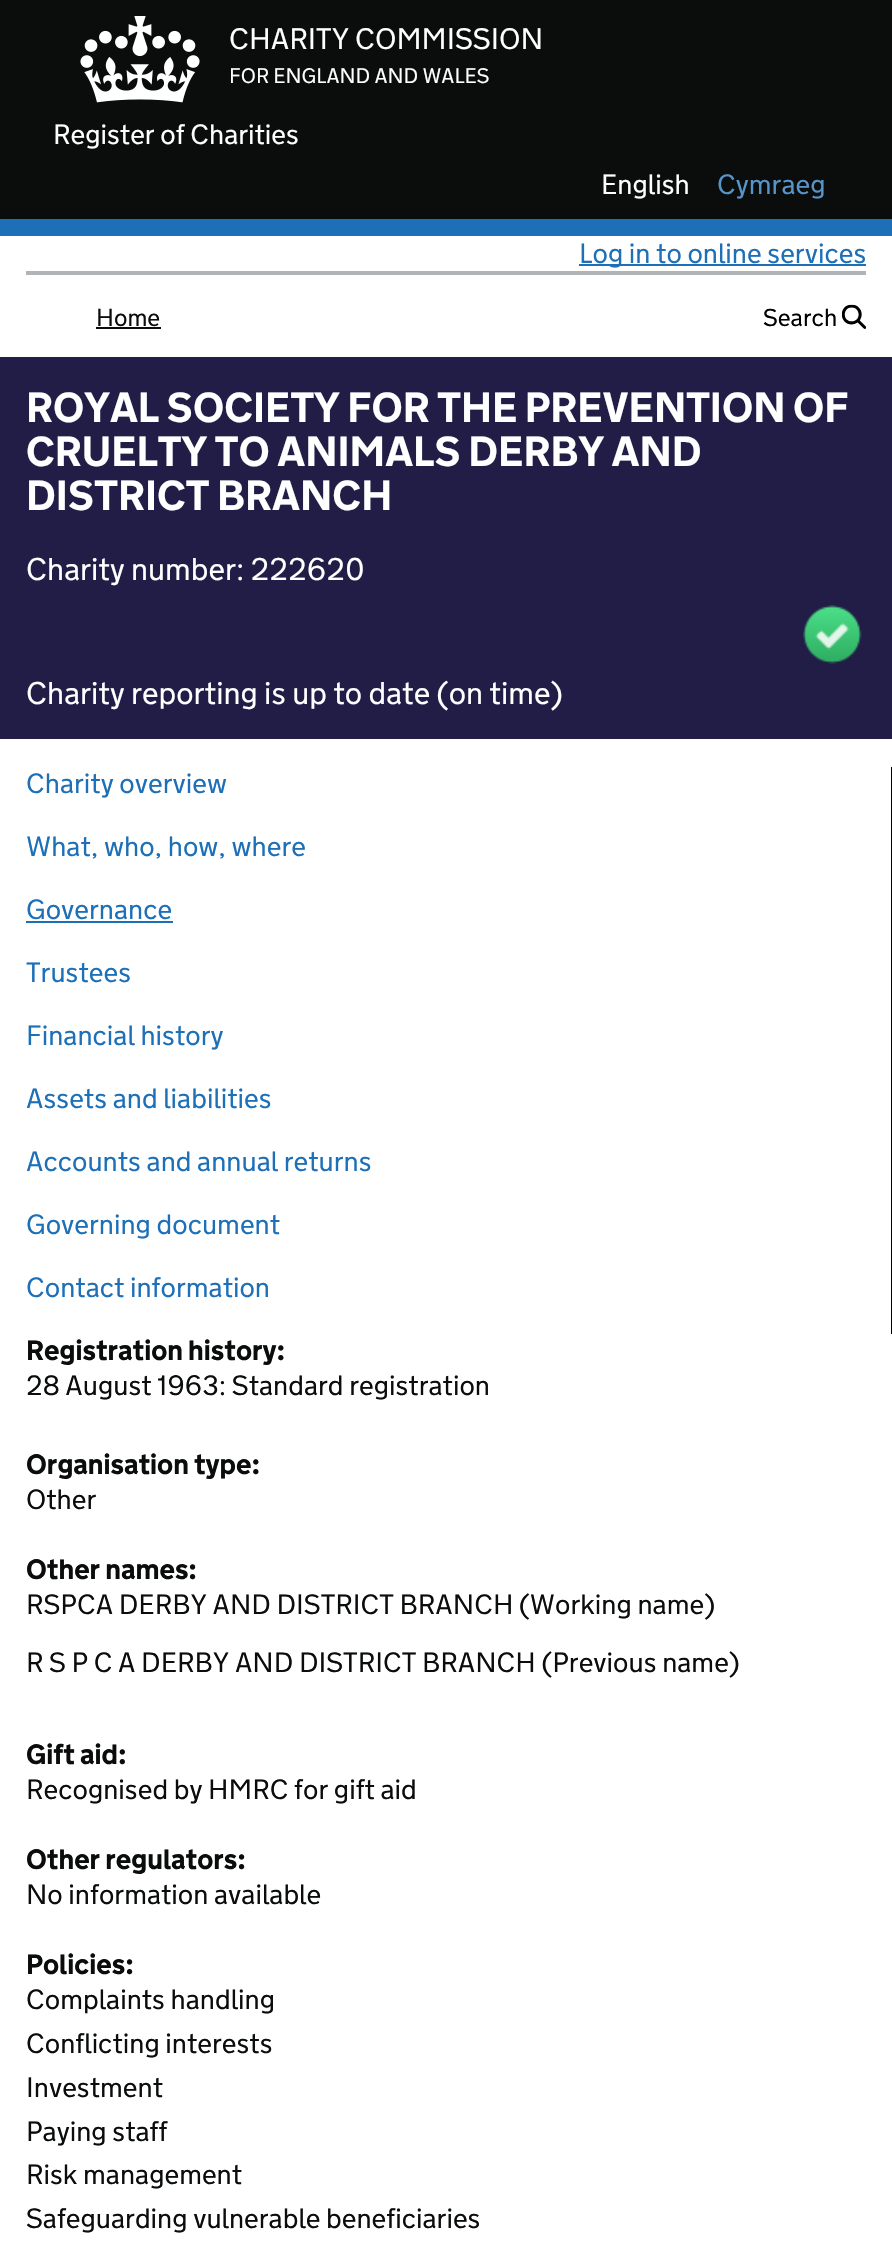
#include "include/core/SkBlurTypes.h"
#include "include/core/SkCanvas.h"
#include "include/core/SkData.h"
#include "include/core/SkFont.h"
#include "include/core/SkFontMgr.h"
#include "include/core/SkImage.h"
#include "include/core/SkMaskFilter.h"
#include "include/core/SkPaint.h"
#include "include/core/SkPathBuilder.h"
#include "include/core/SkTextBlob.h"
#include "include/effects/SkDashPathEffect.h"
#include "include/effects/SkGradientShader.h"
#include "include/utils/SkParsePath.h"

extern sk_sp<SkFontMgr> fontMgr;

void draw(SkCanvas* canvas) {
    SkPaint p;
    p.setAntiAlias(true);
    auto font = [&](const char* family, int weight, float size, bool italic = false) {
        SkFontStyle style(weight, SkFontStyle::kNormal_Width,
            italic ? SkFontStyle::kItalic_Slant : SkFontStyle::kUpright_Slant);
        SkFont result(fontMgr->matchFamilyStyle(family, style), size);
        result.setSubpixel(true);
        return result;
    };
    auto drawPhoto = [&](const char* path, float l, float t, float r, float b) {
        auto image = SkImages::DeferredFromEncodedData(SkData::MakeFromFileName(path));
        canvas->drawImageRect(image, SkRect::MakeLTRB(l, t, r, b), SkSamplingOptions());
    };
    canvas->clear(0xFFFFFFFF);
    p.setColor(0xFF0B0C0C);
    canvas->drawRect(SkRect::MakeLTRB(0, 0, 892, 219), p);
    p.setColor(0xFF1D70B8);
    canvas->drawRect(SkRect::MakeLTRB(0, 219, 892, 236), p);
    drawPhoto("media/1.png", 80, 16, 200, 103);
    auto font1 = font("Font", 300, 29.75f);
    p.setColor(0xFFFFFFFF);
    canvas->drawString("CHARITY COMMISSION", 229, 49, font1, p);
    auto font2 = font("Font", 300, 21);
    canvas->drawString("FOR ENGLAND AND WALES", 229, 83, font2, p);
    auto font3 = font("Font", 300, 28);
    canvas->drawString("Register of Charities", 53, 144, font3, p);
    canvas->drawString("English", 601, 194, font3, p);
    p.setColor(0xFF5694CA);
    canvas->drawString("Cymraeg", 717, 194, font3, p);
    p.setColor(0xFFB1B4B6);
    canvas->drawRect(SkRect::MakeLTRB(26, 271, 866, 275), p);
    p.setColor(0xFF1D70B8);
    canvas->drawRect(SkRect::MakeLTRB(579, 264, 866, 266), p);
    canvas->drawString("Log in to online services", 579, 263, font3, p);
    auto font4 = font("Font", 300, 24.5f);
    p.setColor(0xFF0B0C0C);
    canvas->drawString("Home", 96, 326, font4, p);
    canvas->drawRect(SkRect::MakeLTRB(96, 327, 161, 329), p);
    p.setColor(0xFF000000);
    canvas->drawString("Search", 763, 326, font4, p);
    drawPhoto("media/2.png", 842, 304, 866, 329);
    p.setColor(0xFF211D47);
    canvas->drawRect(SkRect::MakeLTRB(0, 357, 892, 739), p);
    auto font5 = font("Font", 700, 42);
    p.setColor(0xFFFFFFFF);
    {
        const struct { const char* s; float x, y; } items[] = {
            {"ROYAL SOCIETY FOR THE PREVENTION OF", 26, 422},
            {"CRUELTY TO ANIMALS DERBY AND", 26, 466},
            {"DISTRICT BRANCH", 26, 510},
        };
        for (auto [s, x, y] : items) {
            canvas->drawString(s, x, y, font5, p);
        }
    }
    auto font6 = font("Font", 300, 31.5f);
    canvas->drawString("Charity number: 222620", 26, 580, font6, p);
    drawPhoto("media/3.png", 803, 605, 862, 664);
    canvas->drawString("Charity reporting is up to date (on time)", 26, 704, font6, p);
    p.setColor(0xFF000000);
    canvas->drawRect(SkRect::MakeLTRB(891, 767, 892, 1334), p);
    p.setColor(0xFF1D70B8);
    {
        const struct { const char* s; float x, y; } items[] = {
            {"Charity overview", 26, 793},
            {"What, who, how, where", 26, 856},
            {"Governance", 26, 919},
        };
        for (auto [s, x, y] : items) {
            canvas->drawString(s, x, y, font3, p);
        }
    }
    canvas->drawRect(SkRect::MakeLTRB(26, 921, 173, 923), p);
    {
        const struct { const char* s; float x, y; } items[] = {
            {"Trustees", 26, 982},
            {"Financial history", 26, 1045},
            {"Assets and liabilities", 26, 1108},
            {"Accounts and annual returns", 26, 1171},
            {"Governing document", 26, 1234},
            {"Contact information", 26, 1297},
        };
        for (auto [s, x, y] : items) {
            canvas->drawString(s, x, y, font3, p);
        }
    }
    auto font7 = font("Font", 700, 28);
    p.setColor(0xFF0B0C0C);
    canvas->drawString("Registration history:", 26, 1360, font7, p);
    canvas->drawString("28 August 1963: Standard registration", 26, 1395, font3, p);
    canvas->drawString("Organisation type:", 26, 1474, font7, p);
    canvas->drawString("Other", 26, 1509, font3, p);
    canvas->drawString("Other names:", 26, 1579, font7, p);
    canvas->drawString("RSPCA DERBY AND DISTRICT BRANCH (Working name)", 26, 1614, font3, p);
    canvas->drawString("R S P C A DERBY AND DISTRICT BRANCH (Previous name)", 26, 1672, font3, p);
    canvas->drawString("Gift aid:", 26, 1764, font7, p);
    canvas->drawString("Recognised by HMRC for gift aid", 26, 1799, font3, p);
    canvas->drawString("Other regulators:", 26, 1869, font7, p);
    canvas->drawString("No information available", 26, 1904, font3, p);
    canvas->drawString("Policies:", 26, 1974, font7, p);
    {
        const struct { const char* s; float x, y; } items[] = {
            {"Complaints handling", 26, 2009},
            {"Conflicting interests", 26, 2053},
            {"Investment", 26, 2097},
            {"Paying staff", 26, 2141},
            {"Risk management", 26, 2184},
            {"Safeguarding vulnerable beneficiaries", 26, 2228},
        };
        for (auto [s, x, y] : items) {
            canvas->drawString(s, x, y, font3, p);
        }
    }
}
